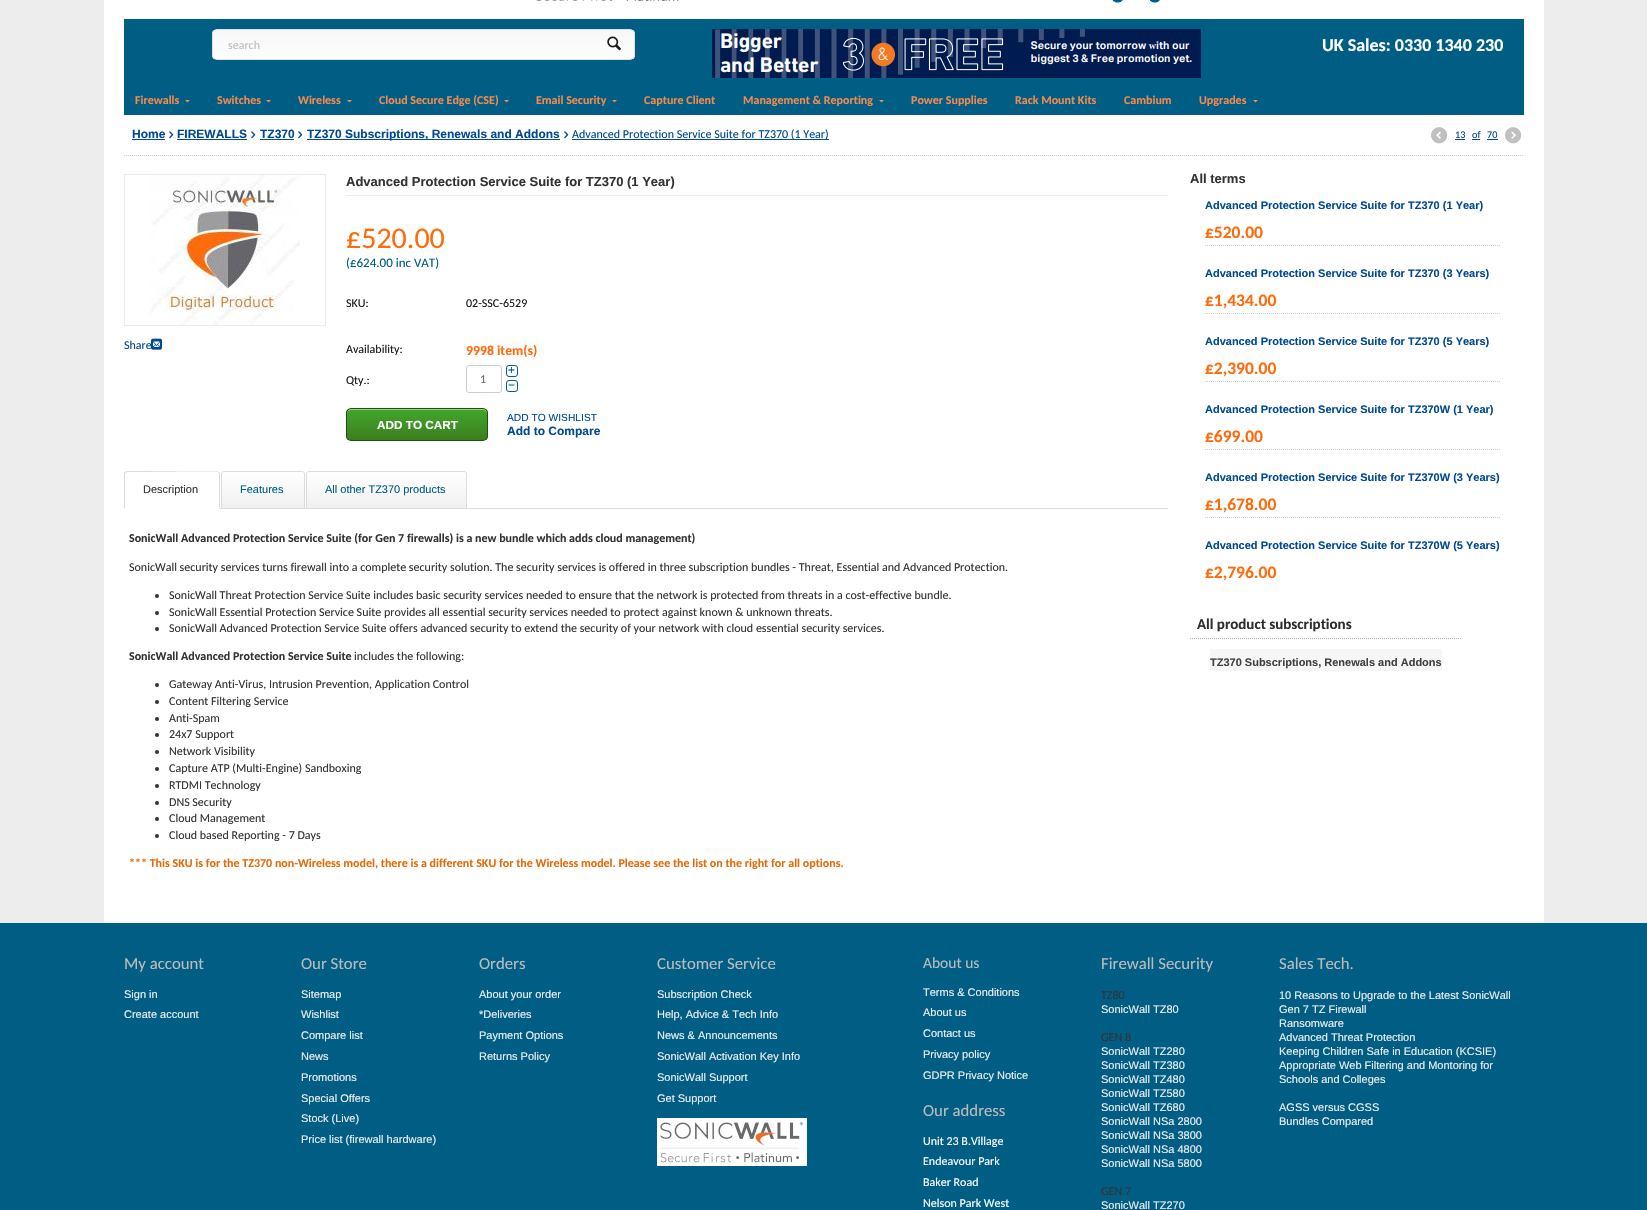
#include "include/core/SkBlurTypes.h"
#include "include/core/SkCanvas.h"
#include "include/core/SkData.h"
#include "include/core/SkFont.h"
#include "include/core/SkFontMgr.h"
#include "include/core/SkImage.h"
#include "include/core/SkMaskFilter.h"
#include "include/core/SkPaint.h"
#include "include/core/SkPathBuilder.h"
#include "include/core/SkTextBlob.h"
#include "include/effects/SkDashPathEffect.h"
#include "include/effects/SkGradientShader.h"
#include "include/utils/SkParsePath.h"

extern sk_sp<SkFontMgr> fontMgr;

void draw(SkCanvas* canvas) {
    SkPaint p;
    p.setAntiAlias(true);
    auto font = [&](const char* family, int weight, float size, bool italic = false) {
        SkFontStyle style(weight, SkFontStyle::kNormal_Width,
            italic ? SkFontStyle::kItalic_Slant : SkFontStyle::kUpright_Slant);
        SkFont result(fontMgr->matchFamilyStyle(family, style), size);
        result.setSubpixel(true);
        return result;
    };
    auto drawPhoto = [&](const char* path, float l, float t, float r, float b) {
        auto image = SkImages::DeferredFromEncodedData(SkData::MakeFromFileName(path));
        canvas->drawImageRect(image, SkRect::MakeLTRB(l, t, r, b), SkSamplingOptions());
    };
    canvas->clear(0xFFEDEDED);
    p.setColor(0xFFFFFFFF);
    canvas->drawRect(SkRect::MakeLTRB(104, 0, 1544, 923), p);
    drawPhoto("media/1.png", 536, 0, 679, 1);
    drawPhoto("media/2.png", 1112, 0, 1160, 3);
    p.setColor(0xFF005D84);
    canvas->drawRect(SkRect::MakeLTRB(124, 19, 1524, 115), p);
    canvas->save();
    canvas->clipPath(SkPathBuilder().moveTo(217, 29).lineTo(630, 29).cubicTo(633, 29, 635, 31, 635, 34).lineTo(635, 55).cubicTo(635, 58, 633, 60, 630, 60).lineTo(217, 60).cubicTo(214, 60, 212, 58, 212, 55).lineTo(212, 34).cubicTo(212, 31, 214, 29, 217, 29).close().detach(), true);
    {
        const SkColor colors[] = {0xFFF7F7F7, 0xFFFDFDFD};
        const float stops[] = {0, 1};
        const SkPoint ends[] = {{424, 30}, {424, 59}};
        p.setShader(SkGradientShader::MakeLinear(ends, colors, stops, 2, SkTileMode::kClamp));
        p.setAlpha(255);
    }
    canvas->drawRect(SkRect::MakeLTRB(212, 30, 635, 59), p);
    canvas->restore();
    p.setStyle(SkPaint::kStroke_Style);
    p.setStrokeWidth(1);
    p.setShader(nullptr);
    p.setColor(0xFFE0E0E0);
    canvas->drawRoundRect(SkRect::MakeLTRB(212.5f, 29.5f, 634.5f, 59.5f), 4.5f, 4.5f, p);
    auto font1 = font("Carlito", 400, 12);
    p.setStyle(SkPaint::kFill_Style);
    p.setColor(0xFFBCBCBC);
    canvas->drawString("search", 228, 49, font1, p);
    drawPhoto("media/3.png", 607, 36, 621, 51);
    drawPhoto("media/4.png", 712, 29, 1201, 78);
    auto font2 = font("Carlito", 700, 18);
    p.setColor(0xFFFFFFFF);
    canvas->drawString("UK Sales: 0330 1340 230", 1322, 51, font2, p);
    auto font3 = font("Carlito", 700, 12);
    p.setColor(0xFFF68A4E);
    canvas->drawString("Firewalls", 135, 104, font3, p);
    canvas->drawPath(SkPathBuilder().moveTo(187.5f, 102.5f).lineTo(185, 100).lineTo(190, 100).close().detach(), p);
    canvas->drawString("Switches", 217, 104, font3, p);
    canvas->drawPath(SkPathBuilder().moveTo(268.5f, 102.5f).lineTo(266, 100).lineTo(271, 100).close().detach(), p);
    canvas->drawString("Wireless", 298, 104, font3, p);
    canvas->drawPath(SkPathBuilder().moveTo(349.5f, 102.5f).lineTo(347, 100).lineTo(352, 100).close().detach(), p);
    canvas->drawString("Cloud Secure Edge (CSE)", 379, 104, font3, p);
    canvas->drawPath(SkPathBuilder().moveTo(506.5f, 102.5f).lineTo(504, 100).lineTo(509, 100).close().detach(), p);
    canvas->drawString("Email Security", 536, 104, font3, p);
    canvas->drawPath(SkPathBuilder().moveTo(614.5f, 102.5f).lineTo(612, 100).lineTo(617, 100).close().detach(), p);
    canvas->drawString("Capture Client", 644, 104, font3, p);
    canvas->drawString("Management & Reporting", 743, 104, font3, p);
    canvas->drawPath(SkPathBuilder().moveTo(881.5f, 102.5f).lineTo(879, 100).lineTo(884, 100).close().detach(), p);
    {
        const struct { const char* s; float x, y; } items[] = {
            {"Power Supplies", 911, 104},
            {"Rack Mount Kits", 1015, 104},
            {"Cambium", 1124, 104},
            {"Upgrades", 1199, 104},
        };
        for (auto [s, x, y] : items) {
            canvas->drawString(s, x, y, font3, p);
        }
    }
    canvas->drawPath(SkPathBuilder().moveTo(1255.5f, 102.5f).lineTo(1253, 100).lineTo(1258, 100).close().detach(), p);
    p.setStyle(SkPaint::kStroke_Style);
    p.setColor(0xFFCDCDCD);
    p.setPathEffect(SkDashPathEffect::Make({{1, 1}}, 0));
    canvas->drawPath(SkPathBuilder().moveTo(124, 155.5f).lineTo(1524, 155.5f).detach(), p);
    p.setPathEffect(nullptr);
    auto font4 = font("Liberation Sans", 700, 12);
    p.setStyle(SkPaint::kFill_Style);
    p.setColor(0xFF004994);
    canvas->drawString("Home", 132, 138, font4, p);
    canvas->drawRect(SkRect::MakeLTRB(132, 139, 165, 140), p);
    drawPhoto("media/5.png", 169, 131, 174, 139);
    canvas->drawString("FIREWALLS", 177, 138, font4, p);
    canvas->drawRect(SkRect::MakeLTRB(177, 139, 247, 140), p);
    drawPhoto("media/5.png", 251, 131, 256, 139);
    canvas->drawString("TZ370", 260, 138, font4, p);
    canvas->drawRect(SkRect::MakeLTRB(260, 139, 294, 140), p);
    drawPhoto("media/5.png", 298, 131, 303, 139);
    canvas->drawRect(SkRect::MakeLTRB(307, 139, 560, 140), p);
    canvas->drawString("TZ370 Subscriptions, Renewals and Addons", 307, 138, font4, p);
    drawPhoto("media/5.png", 564, 131, 569, 139);
    canvas->drawRect(SkRect::MakeLTRB(572, 139, 829, 140), p);
    canvas->drawString("Advanced Protection Service Suite for TZ370 (1 Year)", 572, 138, font1, p);
    drawPhoto("media/6.png", 1431, 127, 1448, 144);
    auto font5 = font("Carlito", 400, 10.25f);
    canvas->drawString("13", 1455, 138, font5, p);
    canvas->drawRect(SkRect::MakeLTRB(1455, 139, 1465, 140), p);
    canvas->drawString("of", 1472, 138, font5, p);
    canvas->drawRect(SkRect::MakeLTRB(1472, 139, 1480, 140), p);
    canvas->drawString("70", 1487, 138, font5, p);
    canvas->drawRect(SkRect::MakeLTRB(1487, 139, 1498, 140), p);
    drawPhoto("media/7.png", 1505, 127, 1522, 144);
    p.setStyle(SkPaint::kStroke_Style);
    p.setColor(0xFFEBEBEB);
    canvas->drawRect(SkRect::MakeLTRB(124.5f, 174.5f, 325.5f, 325.5f), p);
    drawPhoto("media/8.png", 149, 175, 300, 325);
    p.setStyle(SkPaint::kFill_Style);
    p.setColor(0xFF004994);
    canvas->drawString("Share", 124, 349, font1, p);
    drawPhoto("media/9.png", 151, 338, 162, 350);
    auto font6 = font("Liberation Sans", 700, 13);
    p.setColor(0xFF333333);
    canvas->drawString("Advanced Protection Service Suite for TZ370 (1 Year)", 346, 186, font6, p);
    p.setColor(0xFFEBEBEB);
    canvas->drawRect(SkRect::MakeLTRB(346, 195, 1168, 196), p);
    auto font7 = font("Carlito", 400, 30);
    p.setColor(0xFFFF6B0B);
    canvas->drawString("£520.00", 346, 248, font7, p);
    auto font8 = font("Carlito", 400, 13);
    p.setColor(0xFF005D84);
    canvas->drawString("(£624.00 inc VAT)", 346, 267, font8, p);
    p.setColor(0xFF1A1A1A);
    {
        const struct { const char* s; float x, y; } items[] = {
            {"SKU:", 346, 307},
            {"02-SSC-6529", 466, 307},
            {"Availability:", 346, 353},
        };
        for (auto [s, x, y] : items) {
            canvas->drawString(s, x, y, font1, p);
        }
    }
    auto font9 = font("Carlito", 700, 13.75f);
    p.setColor(0xFFFF6B0B);
    canvas->drawString("9998 item(s)", 466, 355, font9, p);
    p.setColor(0xFF1A1A1A);
    canvas->drawString("Qty.:", 346, 384, font1, p);
    p.setStyle(SkPaint::kStroke_Style);
    p.setColor(0xFF005D84);
    canvas->drawRoundRect(SkRect::MakeLTRB(506.5f, 365.5f, 517.5f, 376.5f), 2.5f, 2.5f, p);
    auto font10 = font("Liberation Sans", 400, 12);
    p.setStyle(SkPaint::kFill_Style);
    canvas->drawString("+", 508, 374, font10, p);
    p.setStyle(SkPaint::kStroke_Style);
    p.setColor(0xFFCDCDCD);
    canvas->drawRoundRect(SkRect::MakeLTRB(466.5f, 365.5f, 501.5f, 392.5f), 2.5f, 2.5f, p);
    p.setStyle(SkPaint::kFill_Style);
    p.setColor(0xFF676767);
    canvas->drawString("1", 480, 383, font1, p);
    p.setStyle(SkPaint::kStroke_Style);
    p.setColor(0xFF005D84);
    canvas->drawRoundRect(SkRect::MakeLTRB(506.5f, 380.5f, 517.5f, 391.5f), 2.5f, 2.5f, p);
    p.setStyle(SkPaint::kFill_Style);
    canvas->drawString("−", 508, 389, font10, p);
    canvas->save();
    canvas->clipPath(SkPathBuilder().moveTo(351, 408).lineTo(483, 408).cubicTo(486, 408, 488, 410, 488, 413).lineTo(488, 436).cubicTo(488, 439, 486, 441, 483, 441).lineTo(351, 441).cubicTo(348, 441, 346, 439, 346, 436).lineTo(346, 413).cubicTo(346, 410, 348, 408, 351, 408).close().detach(), true);
    {
        const SkColor colors[] = {0xFF41A72A, 0xFF3C7E20};
        const float stops[] = {0, 1};
        const SkPoint ends[] = {{417, 409}, {417, 440}};
        p.setShader(SkGradientShader::MakeLinear(ends, colors, stops, 2, SkTileMode::kClamp));
        p.setAlpha(255);
    }
    canvas->drawRect(SkRect::MakeLTRB(346, 409, 488, 440), p);
    canvas->restore();
    p.setShader(nullptr);
    p.setColor(0xFF97CE8A);
    canvas->drawPath(SkPathBuilder().moveTo(351, 410).lineTo(483, 410).cubicTo(485, 410, 487, 412, 487, 414).lineTo(487, 413).cubicTo(487, 411, 485, 409, 483, 409).lineTo(351, 409).cubicTo(349, 409, 347, 411, 347, 413).lineTo(347, 414).cubicTo(347, 412, 349, 410, 351, 410).close().detach(), p);
    p.setStyle(SkPaint::kStroke_Style);
    p.setColor(0xFF254D14);
    canvas->drawRoundRect(SkRect::MakeLTRB(346.5f, 408.5f, 487.5f, 440.5f), 4.5f, 4.5f, p);
    auto font11 = font("Liberation Sans", 700, 11.75f);
    p.setStyle(SkPaint::kFill_Style);
    p.setColor(0xFFFFFFFF);
    canvas->drawString("ADD TO CART", 377, 429, font11, p);
    auto font12 = font("Liberation Sans", 400, 10.25f);
    p.setColor(0xFF004994);
    canvas->drawString("ADD TO WISHLIST", 507, 421, font12, p);
    canvas->drawString("Add to Compare", 507, 435, font4, p);
    p.setColor(0xFFDCDCDC);
    canvas->drawRect(SkRect::MakeLTRB(220, 508, 1168, 509), p);
    canvas->drawPath(SkPathBuilder().moveTo(127, 471).lineTo(125, 472).lineTo(126, 473).lineTo(127, 472).lineTo(142, 472).cubicTo(150, 472, 217, 471, 218, 472).lineTo(218, 473).lineTo(219, 472).lineTo(217, 471).close().detach(), p);
    canvas->drawPath(SkPathBuilder().moveTo(220, 509).lineTo(220, 474).cubicTo(220, 473, 220, 472, 219, 472).lineTo(218.5f, 472.5f).lineTo(219, 474).lineTo(219, 508).close().detach(), p);
    p.setColor(0xFFFFFFFF);
    canvas->drawPath(SkPathBuilder().moveTo(220, 509).lineTo(219, 508).lineTo(125, 508).lineTo(124, 509).close().detach(), p);
    p.setColor(0xFFDCDCDC);
    canvas->drawPath(SkPathBuilder().moveTo(124, 509).lineTo(125, 508).lineTo(125, 474).lineTo(125.5f, 472.5f).lineTo(125, 472).cubicTo(124, 472, 124, 473, 124, 474).close().detach(), p);
    auto font13 = font("Liberation Sans", 400, 11);
    p.setColor(0xFF333333);
    canvas->drawString("Description", 143, 493, font13, p);
    canvas->save();
    canvas->clipPath(SkPathBuilder().moveTo(224, 471).lineTo(302, 471).cubicTo(303.5f, 471, 305, 472.5f, 305, 474).lineTo(305, 509).lineTo(221, 509).lineTo(221, 474).cubicTo(221, 472.5f, 222.5f, 471, 224, 471).close().detach(), true);
    {
        const SkColor colors[] = {0xFFFFFFFF, 0xFFF0F0F0};
        const float stops[] = {0, 1};
        const SkPoint ends[] = {{263, 472}, {263, 508}};
        p.setShader(SkGradientShader::MakeLinear(ends, colors, stops, 2, SkTileMode::kClamp));
        p.setAlpha(255);
    }
    canvas->drawRect(SkRect::MakeLTRB(221, 472, 305, 508), p);
    canvas->restore();
    p.setStyle(SkPaint::kStroke_Style);
    p.setShader(nullptr);
    p.setColor(0xFFDCDCDC);
    canvas->drawPath(SkPathBuilder().moveTo(224, 471.5f).lineTo(302, 471.5f).cubicTo(303.5f, 471.5f, 304.5f, 472.5f, 304.5f, 474).lineTo(304.5f, 508.5f).lineTo(221.5f, 508.5f).lineTo(221.5f, 474).cubicTo(221.5f, 472.5f, 222.5f, 471.5f, 224, 471.5f).close().detach(), p);
    p.setStyle(SkPaint::kFill_Style);
    p.setColor(0xFF005D84);
    canvas->drawString("Features", 240, 493, font13, p);
    canvas->save();
    canvas->clipPath(SkPathBuilder().moveTo(309, 471).lineTo(464, 471).cubicTo(465.5f, 471, 467, 472.5f, 467, 474).lineTo(467, 509).lineTo(306, 509).lineTo(306, 474).cubicTo(306, 472.5f, 307.5f, 471, 309, 471).close().detach(), true);
    {
        const SkColor colors[] = {0xFFFFFFFF, 0xFFF0F0F0};
        const float stops[] = {0, 1};
        const SkPoint ends[] = {{387, 472}, {387, 508}};
        p.setShader(SkGradientShader::MakeLinear(ends, colors, stops, 2, SkTileMode::kClamp));
        p.setAlpha(255);
    }
    canvas->drawRect(SkRect::MakeLTRB(306, 472, 467, 508), p);
    canvas->restore();
    p.setStyle(SkPaint::kStroke_Style);
    p.setShader(nullptr);
    p.setColor(0xFFDCDCDC);
    canvas->drawPath(SkPathBuilder().moveTo(309, 471.5f).lineTo(464, 471.5f).cubicTo(465.5f, 471.5f, 466.5f, 472.5f, 466.5f, 474).lineTo(466.5f, 508.5f).lineTo(306.5f, 508.5f).lineTo(306.5f, 474).cubicTo(306.5f, 472.5f, 307.5f, 471.5f, 309, 471.5f).close().detach(), p);
    p.setStyle(SkPaint::kFill_Style);
    p.setColor(0xFF005D84);
    canvas->drawString("All other TZ370 products", 325, 493, font13, p);
    p.setColor(0xFF333333);
    canvas->drawString("SonicWall Advanced Protection Service Suite (for Gen 7 firewalls) is a new bundle which adds cloud management)", 129, 542, font3, p);
    canvas->drawString("SonicWall security services turns firewall into a complete security solution. The security services is offered in three subscription bundles - Threat, Essential and Advanced Protection.", 129, 571, font1, p);
    canvas->drawCircle(157, 596, 2, p);
    canvas->drawString("SonicWall Threat Protection Service Suite includes basic security services needed to ensure that the network is protected from threats in a cost-effective bundle.", 169, 599, font1, p);
    canvas->drawCircle(157, 613, 2, p);
    canvas->drawString("SonicWall Essential Protection Service Suite provides all essential security services needed to protect against known & unknown threats.", 169, 616, font1, p);
    canvas->drawCircle(157, 629, 2, p);
    canvas->drawString("SonicWall Advanced Protection Service Suite offers advanced security to extend the security of your network with cloud essential security services.", 169, 632, font1, p);
    canvas->drawString("SonicWall Advanced Protection Service Suite", 129, 660, font3, p);
    canvas->drawString("includes the following:", 354, 660, font1, p);
    canvas->drawCircle(157, 685, 2, p);
    canvas->drawString("Gateway Anti-Virus, Intrusion Prevention, Application Control", 169, 688, font1, p);
    canvas->drawCircle(157, 702, 2, p);
    canvas->drawString("Content Filtering Service", 169, 705, font1, p);
    canvas->drawCircle(157, 719, 2, p);
    canvas->drawString("Anti-Spam", 169, 722, font1, p);
    canvas->drawCircle(157, 735, 2, p);
    canvas->drawString("24x7 Support", 169, 738, font1, p);
    canvas->drawCircle(157, 752, 2, p);
    canvas->drawString("Network Visibility", 169, 755, font1, p);
    canvas->drawCircle(157, 769, 2, p);
    canvas->drawString("Capture ATP (Multi-Engine) Sandboxing", 169, 772, font1, p);
    canvas->drawCircle(157, 786, 2, p);
    canvas->drawString("RTDMI Technology", 169, 789, font1, p);
    canvas->drawCircle(157, 803, 2, p);
    canvas->drawString("DNS Security", 169, 806, font1, p);
    canvas->drawCircle(157, 819, 2, p);
    canvas->drawString("Cloud Management", 169, 822, font1, p);
    canvas->drawCircle(157, 836, 2, p);
    canvas->drawString("Cloud based Reporting - 7 Days", 169, 839, font1, p);
    p.setColor(0xFFE36C09);
    canvas->drawString("*** This SKU is for the TZ370 non-Wireless model, there is a different SKU for the Wireless model. Please see the list on the right for all options.", 129, 867, font3, p);
    p.setColor(0xFF333333);
    canvas->drawString("All terms", 1190, 183, font6, p);
    auto font14 = font("Liberation Sans", 700, 11);
    p.setColor(0xFF004994);
    canvas->drawString("Advanced Protection Service Suite for TZ370 (1 Year)", 1205, 209, font14, p);
    auto font15 = font("Carlito", 700, 17.5f);
    p.setColor(0xFFFF6B0B);
    canvas->drawString("£520.00", 1205, 238, font15, p);
    p.setStyle(SkPaint::kStroke_Style);
    p.setColor(0xFFCDCDCD);
    p.setPathEffect(SkDashPathEffect::Make({{1, 1}}, 0));
    canvas->drawPath(SkPathBuilder().moveTo(1205, 245.5f).lineTo(1500, 245.5f).detach(), p);
    p.setPathEffect(nullptr);
    p.setStyle(SkPaint::kFill_Style);
    p.setColor(0xFF004994);
    canvas->drawString("Advanced Protection Service Suite for TZ370 (3 Years)", 1205, 277, font14, p);
    p.setColor(0xFFFF6B0B);
    canvas->drawString("£1,434.00", 1205, 306, font15, p);
    p.setStyle(SkPaint::kStroke_Style);
    p.setColor(0xFFCDCDCD);
    p.setPathEffect(SkDashPathEffect::Make({{1, 1}}, 0));
    canvas->drawPath(SkPathBuilder().moveTo(1205, 313.5f).lineTo(1500, 313.5f).detach(), p);
    p.setPathEffect(nullptr);
    p.setStyle(SkPaint::kFill_Style);
    p.setColor(0xFF004994);
    canvas->drawString("Advanced Protection Service Suite for TZ370 (5 Years)", 1205, 345, font14, p);
    p.setColor(0xFFFF6B0B);
    canvas->drawString("£2,390.00", 1205, 374, font15, p);
    p.setStyle(SkPaint::kStroke_Style);
    p.setColor(0xFFCDCDCD);
    p.setPathEffect(SkDashPathEffect::Make({{1, 1}}, 0));
    canvas->drawPath(SkPathBuilder().moveTo(1205, 381.5f).lineTo(1500, 381.5f).detach(), p);
    p.setPathEffect(nullptr);
    p.setStyle(SkPaint::kFill_Style);
    p.setColor(0xFF004994);
    canvas->drawString("Advanced Protection Service Suite for TZ370W (1 Year)", 1205, 413, font14, p);
    p.setColor(0xFFFF6B0B);
    canvas->drawString("£699.00", 1205, 442, font15, p);
    p.setStyle(SkPaint::kStroke_Style);
    p.setColor(0xFFCDCDCD);
    p.setPathEffect(SkDashPathEffect::Make({{1, 1}}, 0));
    canvas->drawPath(SkPathBuilder().moveTo(1205, 449.5f).lineTo(1500, 449.5f).detach(), p);
    p.setPathEffect(nullptr);
    p.setStyle(SkPaint::kFill_Style);
    p.setColor(0xFF004994);
    canvas->drawString("Advanced Protection Service Suite for TZ370W (3 Years)", 1205, 481, font14, p);
    p.setColor(0xFFFF6B0B);
    canvas->drawString("£1,678.00", 1205, 510, font15, p);
    p.setStyle(SkPaint::kStroke_Style);
    p.setColor(0xFFCDCDCD);
    p.setPathEffect(SkDashPathEffect::Make({{1, 1}}, 0));
    canvas->drawPath(SkPathBuilder().moveTo(1205, 517.5f).lineTo(1500, 517.5f).detach(), p);
    p.setPathEffect(nullptr);
    p.setStyle(SkPaint::kFill_Style);
    p.setColor(0xFF004994);
    canvas->drawString("Advanced Protection Service Suite for TZ370W (5 Years)", 1205, 549, font14, p);
    p.setColor(0xFFFF6B0B);
    canvas->drawString("£2,796.00", 1205, 578, font15, p);
    p.setStyle(SkPaint::kStroke_Style);
    p.setColor(0xFFB7B7B7);
    p.setPathEffect(SkDashPathEffect::Make({{1, 1}}, 0));
    canvas->drawPath(SkPathBuilder().moveTo(1190, 638.5f).lineTo(1462, 638.5f).detach(), p);
    p.setPathEffect(nullptr);
    auto font16 = font("Carlito", 700, 15);
    p.setStyle(SkPaint::kFill_Style);
    p.setColor(0xFF2D2E2E);
    canvas->drawString("All product subscriptions", 1197, 629, font16, p);
    p.setColor(0xFFF6F6F6);
    canvas->drawRect(SkRect::MakeLTRB(1210, 649, 1442, 671), p);
    p.setColor(0xFF404040);
    canvas->drawString("TZ370 Subscriptions, Renewals and Addons", 1210, 666, font14, p);
    p.setColor(0xFF005D84);
    canvas->drawRect(SkRect::MakeLTRB(0, 923, 1647, 1210), p);
    auto font17 = font("Carlito", 400, 16.75f);
    p.setColor(0xFFBCBCBC);
    canvas->drawString("My account", 124, 969, font17, p);
    p.setColor(0xFFEFEFEF);
    canvas->drawString("Sign in", 124, 998, font13, p);
    canvas->drawString("Create account", 124, 1018, font13, p);
    p.setColor(0xFFBCBCBC);
    canvas->drawString("Our Store", 301, 969, font17, p);
    p.setColor(0xFFEFEFEF);
    {
        const struct { const char* s; float x, y; } items[] = {
            {"Sitemap", 301, 998},
            {"Wishlist", 301, 1018},
            {"Compare list", 301, 1039},
            {"News", 301, 1060},
            {"Promotions", 301, 1081},
            {"Special Offers", 301, 1102},
            {"Stock (Live)", 301, 1122},
            {"Price list (firewall hardware)", 301, 1143},
        };
        for (auto [s, x, y] : items) {
            canvas->drawString(s, x, y, font13, p);
        }
    }
    p.setColor(0xFFBCBCBC);
    canvas->drawString("Orders", 479, 969, font17, p);
    p.setColor(0xFFEFEFEF);
    {
        const struct { const char* s; float x, y; } items[] = {
            {"About your order", 479, 998},
            {"*Deliveries", 479, 1018},
            {"Payment Options", 479, 1039},
            {"Returns Policy", 479, 1060},
        };
        for (auto [s, x, y] : items) {
            canvas->drawString(s, x, y, font13, p);
        }
    }
    p.setColor(0xFFBCBCBC);
    canvas->drawString("Customer Service", 657, 969, font17, p);
    p.setColor(0xFFEFEFEF);
    {
        const struct { const char* s; float x, y; } items[] = {
            {"Subscription Check", 657, 998},
            {"Help, Advice & Tech Info", 657, 1018},
            {"News & Announcements", 657, 1039},
            {"SonicWall Activation Key Info", 657, 1060},
            {"SonicWall Support", 657, 1081},
            {"Get Support", 657, 1102},
        };
        for (auto [s, x, y] : items) {
            canvas->drawString(s, x, y, font13, p);
        }
    }
    drawPhoto("media/10.png", 657, 1118, 807, 1166);
    auto font18 = font("Carlito", 400, 15.5f);
    p.setColor(0xFFBCBCBC);
    canvas->drawString("About us", 923, 968, font18, p);
    p.setColor(0xFFEFEFEF);
    {
        const struct { const char* s; float x, y; } items[] = {
            {"Terms & Conditions", 923, 996},
            {"About us", 923, 1016},
            {"Contact us", 923, 1037},
            {"Privacy policy", 923, 1058},
            {"GDPR Privacy Notice", 923, 1079},
        };
        for (auto [s, x, y] : items) {
            canvas->drawString(s, x, y, font13, p);
        }
    }
    p.setColor(0xFFBCBCBC);
    canvas->drawString("Our address", 923, 1116, font17, p);
    p.setColor(0xFFFFFFFF);
    {
        const struct { const char* s; float x, y; } items[] = {
            {"Unit 23 B.Village", 923, 1145},
            {"Endeavour Park", 923, 1165},
            {"Baker Road", 923, 1186},
            {"Nelson Park West", 923, 1207},
        };
        for (auto [s, x, y] : items) {
            canvas->drawString(s, x, y, font1, p);
        }
    }
    p.setColor(0xFFBCBCBC);
    canvas->drawString("Firewall Security", 1101, 969, font17, p);
    p.setColor(0xFF333333);
    canvas->drawString("TZ80", 1101, 999, font1, p);
    p.setColor(0xFFEFEFEF);
    canvas->drawString("SonicWall TZ80", 1101, 1013, font13, p);
    p.setColor(0xFF333333);
    canvas->drawString("GEN 8", 1101, 1041, font1, p);
    p.setColor(0xFFEFEFEF);
    {
        const struct { const char* s; float x, y; } items[] = {
            {"SonicWall TZ280", 1101, 1055},
            {"SonicWall TZ380", 1101, 1069},
            {"SonicWall TZ480", 1101, 1083},
            {"SonicWall TZ580", 1101, 1097},
            {"SonicWall TZ680", 1101, 1111},
            {"SonicWall NSa 2800", 1101, 1125},
            {"SonicWall NSa 3800", 1101, 1139},
            {"SonicWall NSa 4800", 1101, 1153},
            {"SonicWall NSa 5800", 1101, 1167},
        };
        for (auto [s, x, y] : items) {
            canvas->drawString(s, x, y, font13, p);
        }
    }
    p.setColor(0xFF333333);
    canvas->drawString("GEN 7", 1101, 1195, font1, p);
    p.setColor(0xFFEFEFEF);
    canvas->drawString("SonicWall TZ270", 1101, 1209, font13, p);
    p.setColor(0xFFBCBCBC);
    canvas->drawString("Sales Tech.", 1279, 969, font17, p);
    p.setColor(0xFFEFEFEF);
    {
        const struct { const char* s; float x, y; } items[] = {
            {"10 Reasons to Upgrade to the Latest SonicWall", 1279, 999},
            {"Gen 7 TZ Firewall", 1279, 1013},
            {"Ransomware", 1279, 1027},
            {"Advanced Threat Protection", 1279, 1041},
            {"Keeping Children Safe in Education (KCSIE)", 1279, 1055},
            {"Appropriate Web Filtering and Montoring for", 1279, 1069},
            {"Schools and Colleges", 1279, 1083},
            {"AGSS versus CGSS", 1279, 1111},
            {"Bundles Compared", 1279, 1125},
        };
        for (auto [s, x, y] : items) {
            canvas->drawString(s, x, y, font13, p);
        }
    }
}
